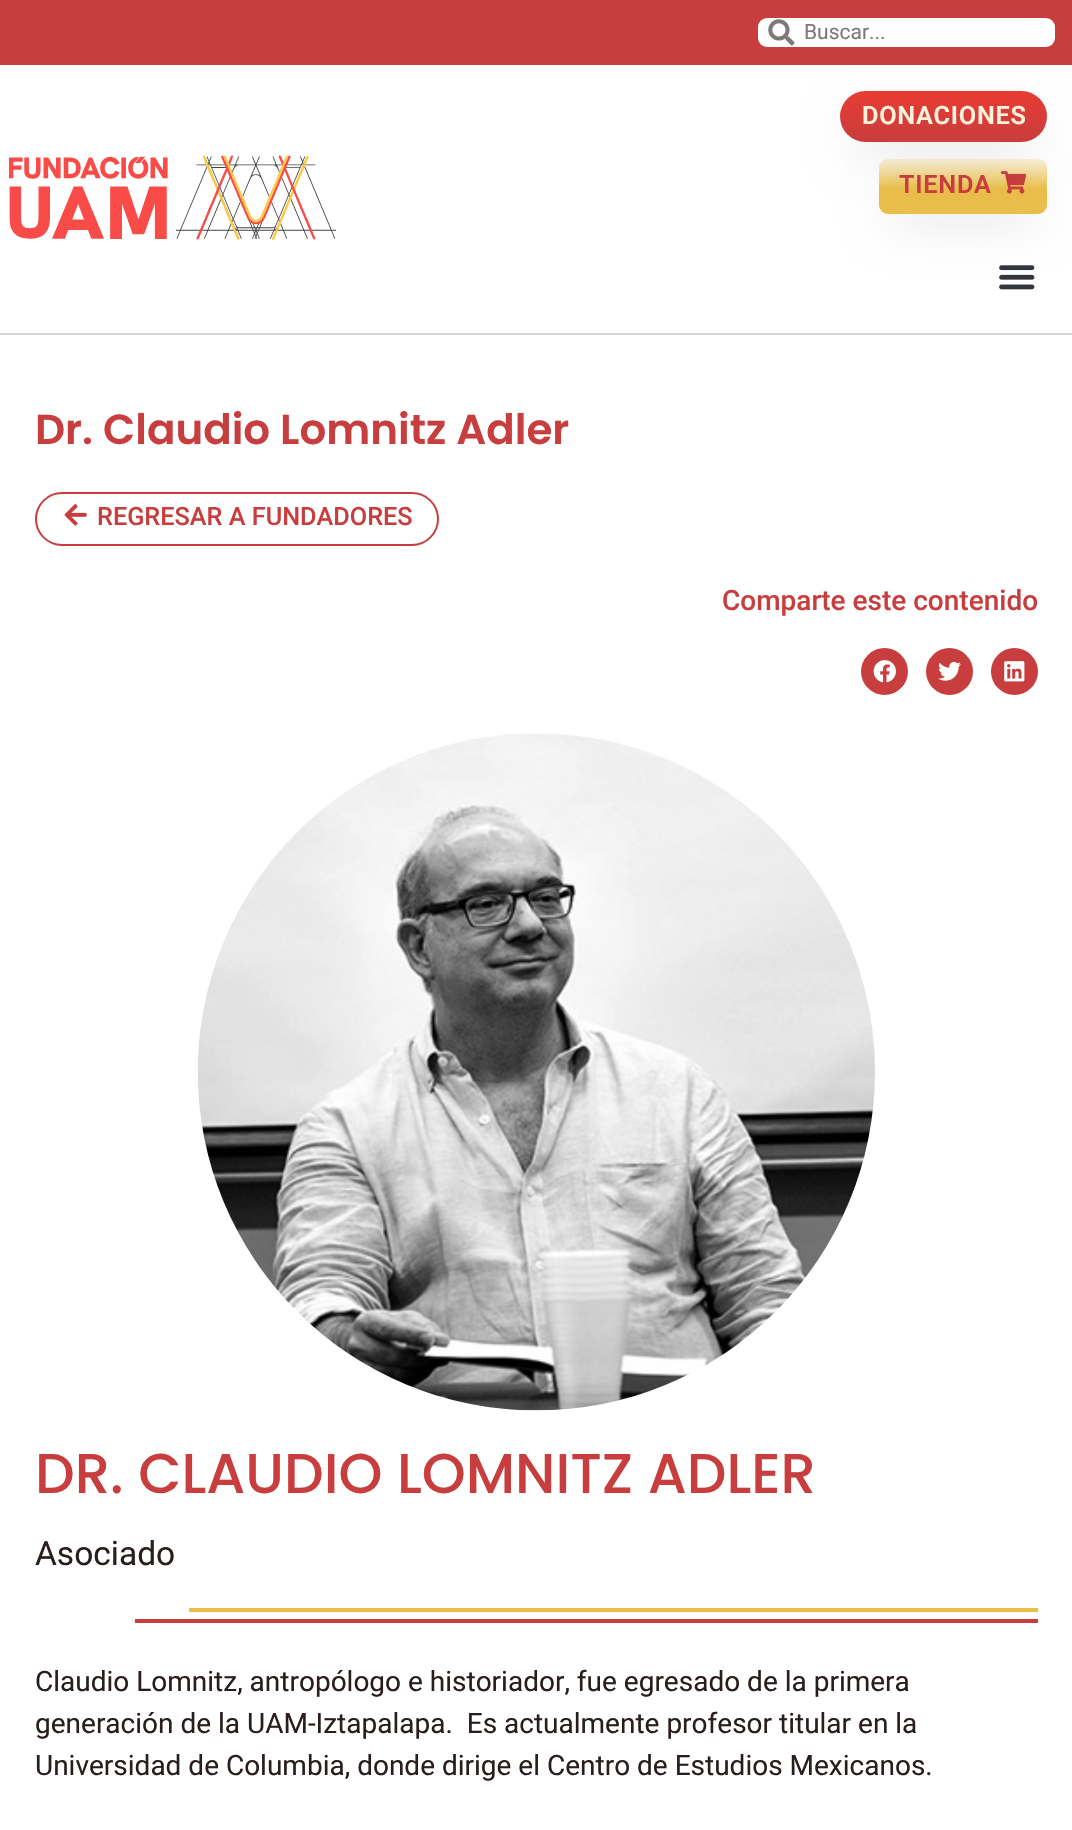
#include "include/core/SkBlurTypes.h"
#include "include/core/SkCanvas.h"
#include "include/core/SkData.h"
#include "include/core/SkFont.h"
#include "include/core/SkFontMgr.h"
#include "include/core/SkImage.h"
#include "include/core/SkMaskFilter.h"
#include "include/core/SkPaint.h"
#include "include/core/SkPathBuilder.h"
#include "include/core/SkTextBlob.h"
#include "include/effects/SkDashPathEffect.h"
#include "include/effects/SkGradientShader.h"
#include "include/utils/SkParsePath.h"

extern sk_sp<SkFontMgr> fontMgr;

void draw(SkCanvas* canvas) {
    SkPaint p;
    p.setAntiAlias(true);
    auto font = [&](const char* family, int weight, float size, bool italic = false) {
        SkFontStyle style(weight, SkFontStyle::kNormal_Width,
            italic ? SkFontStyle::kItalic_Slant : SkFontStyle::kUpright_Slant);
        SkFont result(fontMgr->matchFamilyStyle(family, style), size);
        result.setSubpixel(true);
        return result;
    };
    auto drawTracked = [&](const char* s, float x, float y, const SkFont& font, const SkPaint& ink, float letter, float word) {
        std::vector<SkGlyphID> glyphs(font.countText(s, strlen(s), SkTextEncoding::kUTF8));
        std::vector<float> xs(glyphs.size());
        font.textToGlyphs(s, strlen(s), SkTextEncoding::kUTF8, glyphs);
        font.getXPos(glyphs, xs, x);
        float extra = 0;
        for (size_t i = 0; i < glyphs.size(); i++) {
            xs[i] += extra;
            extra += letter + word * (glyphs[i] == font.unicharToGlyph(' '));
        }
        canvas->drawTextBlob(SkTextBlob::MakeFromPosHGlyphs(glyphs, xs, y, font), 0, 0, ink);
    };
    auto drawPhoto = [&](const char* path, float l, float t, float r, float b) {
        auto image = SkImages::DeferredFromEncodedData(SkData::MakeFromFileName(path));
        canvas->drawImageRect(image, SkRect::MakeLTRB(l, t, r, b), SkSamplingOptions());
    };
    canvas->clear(0xFFFFFFFF);
    p.setColor(0xFFC83D3D);
    canvas->drawRect(SkRect::MakeLTRB(0, 0, 1072, 65), p);
    p.setColor(0xFFFFFFFF);
    canvas->drawRoundRect(SkRect::MakeLTRB(758, 18, 1055, 47), 9, 9, p);
    drawPhoto("media/1.png", 768, 19, 795, 46);
    auto font1 = font("Roboto", 400, 21);
    p.setColor(0xFF7E7877);
    canvas->drawString("Buscar...", 804, 39, font1, p);
    p.setColor(0xFFD6D6D6);
    canvas->drawRect(SkRect::MakeLTRB(0, 333, 1072, 335), p);
    drawPhoto("media/2.png", 9, 155, 336, 240);
    drawPhoto("media/4.png", 999, 265, 1035, 290);
    p.setColor(0x29000000);
    p.setMaskFilter(SkMaskFilter::MakeBlur(kNormal_SkBlurStyle, 26));
    canvas->drawRect(SkRect::MakeLTRB(894, 193, 1031, 215), p);
    p.setMaskFilter(nullptr);
    {
        const SkColor colors[] = {0xFFFBF2DB, 0xFFEABE4A};
        const float stops[] = {0, 0.55f};
        const SkPoint ends[] = {{963, 159}, {963, 214}};
        p.setShader(SkGradientShader::MakeLinear(ends, colors, stops, 2, SkTileMode::kClamp));
        p.setAlpha(255);
    }
    canvas->drawRoundRect(SkRect::MakeLTRB(879, 159, 1047, 214), 9, 9, p);
    drawPhoto("media/3.png", 1001, 171, 1026, 194);
    p.setShader(nullptr);
    p.setColor(0x29000000);
    p.setMaskFilter(SkMaskFilter::MakeBlur(kNormal_SkBlurStyle, 26));
    canvas->drawRoundRect(SkRect::MakeLTRB(856, 124, 1031, 144), 10, 10, p);
    p.setMaskFilter(nullptr);
    {
        const SkColor colors[] = {0xFFE83C33, 0xFFC83D3D};
        const float stops[] = {0, 1};
        const SkPoint ends[] = {{943, 91}, {943, 142}};
        p.setShader(SkGradientShader::MakeLinear(ends, colors, stops, 2, SkTileMode::kClamp));
        p.setAlpha(255);
    }
    canvas->drawRoundRect(SkRect::MakeLTRB(840, 91, 1047, 142), 25.5f, 25.5f, p);
    auto font2 = font("Roboto", 600, 25.25f);
    p.setShader(nullptr);
    p.setColor(0xFFFBF2DB);
    drawTracked("DONACIONES", 862, 124, font2, p, 0.75f, 0);
    p.setColor(0xFFC83D3D);
    drawTracked("TIENDA", 899, 193, font2, p, 0.75f, 0);
    auto font3 = font("Poppins", 600, 42);
    canvas->drawString("Dr. Claudio Lomnitz Adler", 35, 444, font3, p);
    p.setStyle(SkPaint::kStroke_Style);
    p.setStrokeWidth(2);
    canvas->drawRoundRect(SkRect::MakeLTRB(36, 493, 438, 545), 26, 26, p);
    drawPhoto("media/5.png", 64, 504, 87, 526);
    auto font4 = font("Roboto", 500, 25.25f);
    p.setStyle(SkPaint::kFill_Style);
    canvas->drawString("REGRESAR A FUNDADORES", 97, 525, font4, p);
    auto font5 = font("Roboto", 500, 28);
    canvas->drawString("Comparte este contenido", 722, 610, font5, p);
    canvas->drawCircle(884.5f, 671.5f, 23.5f, p);
    drawPhoto("media/6.png", 873, 660, 896, 683);
    canvas->drawCircle(949.5f, 671.5f, 23.5f, p);
    drawPhoto("media/7.png", 938, 661, 961, 681);
    canvas->drawCircle(1014.5f, 671.5f, 23.5f, p);
    drawPhoto("media/8.png", 1004, 661, 1025, 682);
    drawPhoto("media/9.png", 198, 733, 875, 1411);
    auto font6 = font("Poppins", 500, 56);
    canvas->drawString("DR. CLAUDIO LOMNITZ ADLER", 35, 1493, font6, p);
    auto font7 = font("Roboto", 400, 33.5f);
    p.setColor(0xFF281E1C);
    canvas->drawString("Asociado", 35, 1565, font7, p);
    p.setColor(0xFFEABE4A);
    canvas->drawRect(SkRect::MakeLTRB(189, 1608, 1038, 1612), p);
    p.setColor(0xFFC83D3D);
    canvas->drawRect(SkRect::MakeLTRB(135, 1619, 1038, 1623), p);
    auto font8 = font("Roboto", 400, 28);
    p.setColor(0xFF281E1C);
    {
        const struct { const char* s; float x, y; } items[] = {
            {"Claudio Lomnitz, antropólogo e historiador, fue egresado de la primera", 35, 1691},
            {"generación de la UAM-Iztapalapa.  Es actualmente profesor titular en la", 35, 1733},
            {"Universidad de Columbia, donde dirige el Centro de Estudios Mexicanos.", 35, 1775},
        };
        for (auto [s, x, y] : items) {
            canvas->drawString(s, x, y, font8, p);
        }
    }
}
